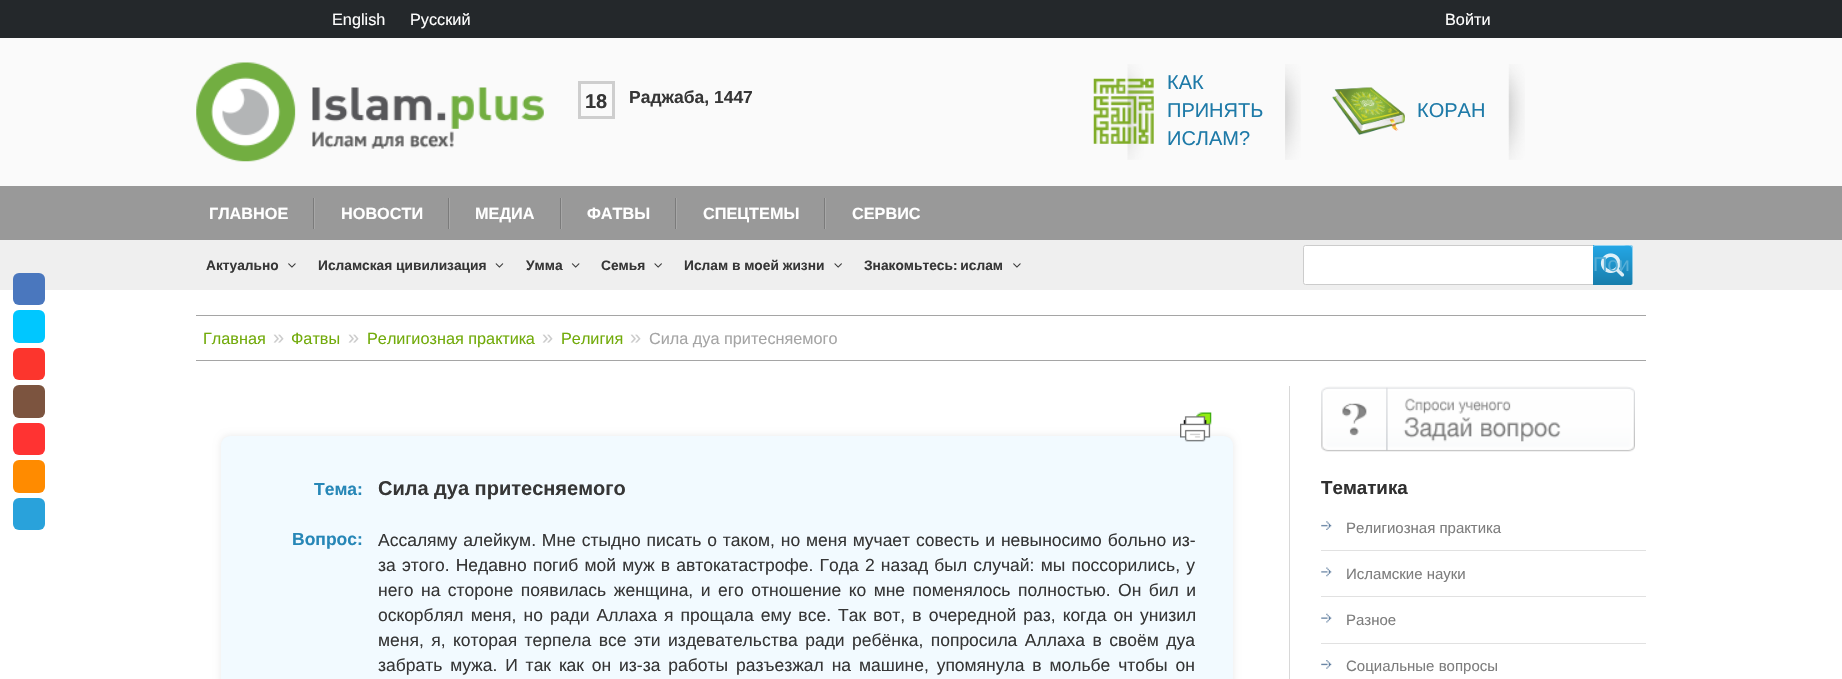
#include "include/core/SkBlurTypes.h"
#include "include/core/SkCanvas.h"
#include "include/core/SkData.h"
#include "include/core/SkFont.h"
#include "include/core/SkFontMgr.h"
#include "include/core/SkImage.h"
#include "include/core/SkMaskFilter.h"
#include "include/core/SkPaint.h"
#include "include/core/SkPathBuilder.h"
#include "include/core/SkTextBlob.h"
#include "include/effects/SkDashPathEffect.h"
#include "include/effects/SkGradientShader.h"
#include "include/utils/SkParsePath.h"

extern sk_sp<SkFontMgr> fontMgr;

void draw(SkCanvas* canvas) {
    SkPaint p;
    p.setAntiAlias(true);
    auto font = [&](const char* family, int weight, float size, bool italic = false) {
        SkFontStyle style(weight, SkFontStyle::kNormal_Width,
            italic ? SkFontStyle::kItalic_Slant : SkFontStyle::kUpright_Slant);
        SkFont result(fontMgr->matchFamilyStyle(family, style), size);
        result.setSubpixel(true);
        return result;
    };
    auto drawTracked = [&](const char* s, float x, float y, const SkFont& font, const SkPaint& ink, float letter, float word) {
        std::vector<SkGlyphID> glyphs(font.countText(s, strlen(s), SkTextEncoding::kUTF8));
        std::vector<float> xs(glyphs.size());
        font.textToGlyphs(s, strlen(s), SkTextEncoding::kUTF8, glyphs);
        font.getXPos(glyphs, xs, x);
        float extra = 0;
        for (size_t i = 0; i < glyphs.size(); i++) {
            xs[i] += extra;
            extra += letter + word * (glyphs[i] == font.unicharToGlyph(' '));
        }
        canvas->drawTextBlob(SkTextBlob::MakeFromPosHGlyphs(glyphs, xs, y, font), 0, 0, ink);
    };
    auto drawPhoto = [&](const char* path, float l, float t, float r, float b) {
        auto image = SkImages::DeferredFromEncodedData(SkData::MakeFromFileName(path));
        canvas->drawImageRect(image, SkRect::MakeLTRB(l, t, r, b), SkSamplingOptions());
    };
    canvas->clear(0xFFFFFFFF);
    p.setColor(0xFF24282B);
    canvas->drawRect(SkRect::MakeLTRB(0, 0, 1842, 38), p);
    auto font1 = font("Liberation Sans", 400, 16.25f);
    p.setColor(0xFFFFFFFF);
    {
        const struct { const char* s; float x, y; } items[] = {
            {"English", 332, 25},
            {"Русский", 410, 25},
            {"Войти", 1445, 25},
        };
        for (auto [s, x, y] : items) {
            canvas->drawString(s, x, y, font1, p);
        }
    }
    p.setColor(0xFFFAFAFA);
    canvas->drawRect(SkRect::MakeLTRB(0, 38, 1842, 186), p);
    drawPhoto("media/1.png", 196, 62, 544, 162);
    p.setStyle(SkPaint::kStroke_Style);
    p.setStrokeWidth(3);
    p.setColor(0xFFCECECE);
    canvas->drawRect(SkRect::MakeLTRB(579.5f, 82.5f, 613.5f, 117.5f), p);
    auto font2 = font("Liberation Sans", 700, 20);
    p.setStyle(SkPaint::kFill_Style);
    p.setColor(0xFF363636);
    canvas->drawString("18", 585, 108, font2, p);
    auto font3 = font("Liberation Sans", 700, 17.5f);
    canvas->drawString("Раджаба, 1447", 629, 103, font3, p);
    drawPhoto("media/2.png", 1127, 64, 1144, 160);
    drawPhoto("media/3.png", 1285, 64, 1301, 160);
    drawPhoto("media/4.png", 1093, 78, 1154, 144);
    auto font4 = font("Liberation Sans", 400, 20);
    p.setColor(0xFF1E7AA8);
    {
        const struct { const char* s; float x, y; } items[] = {
            {"КАК", 1167, 89},
            {"ПРИНЯТЬ", 1167, 117},
            {"ИСЛАМ?", 1167, 145},
        };
        for (auto [s, x, y] : items) {
            canvas->drawString(s, x, y, font4, p);
        }
    }
    drawPhoto("media/5.png", 1508, 64, 1525, 160);
    drawPhoto("media/6.png", 1332, 87, 1405, 135);
    canvas->drawString("КОРАН", 1417, 117, font4, p);
    p.setColor(0xFF999999);
    canvas->drawRect(SkRect::MakeLTRB(0, 186, 1842, 240), p);
    auto font5 = font("Liberation Sans", 700, 16.25f);
    p.setColor(0xFFFFFFFF);
    canvas->drawString("ГЛАВНОЕ", 209, 219, font5, p);
    p.setColor(0xFFA7A7A7);
    canvas->drawRect(SkRect::MakeLTRB(314, 198, 315, 229), p);
    p.setColor(0xFF7B7B7B);
    canvas->drawRect(SkRect::MakeLTRB(313, 198, 314, 229), p);
    p.setColor(0xFFFFFFFF);
    canvas->drawString("НОВОСТИ", 341, 219, font5, p);
    p.setColor(0xFFA7A7A7);
    canvas->drawRect(SkRect::MakeLTRB(449, 198, 450, 229), p);
    p.setColor(0xFF7B7B7B);
    canvas->drawRect(SkRect::MakeLTRB(448, 198, 449, 229), p);
    p.setColor(0xFFFFFFFF);
    canvas->drawString("МЕДИА", 475, 219, font5, p);
    p.setColor(0xFFA7A7A7);
    canvas->drawRect(SkRect::MakeLTRB(561, 198, 562, 229), p);
    p.setColor(0xFF7B7B7B);
    canvas->drawRect(SkRect::MakeLTRB(560, 198, 561, 229), p);
    p.setColor(0xFFFFFFFF);
    canvas->drawString("ФАТВЫ", 587, 219, font5, p);
    p.setColor(0xFFA7A7A7);
    canvas->drawRect(SkRect::MakeLTRB(676, 198, 677, 229), p);
    p.setColor(0xFF7B7B7B);
    canvas->drawRect(SkRect::MakeLTRB(675, 198, 676, 229), p);
    p.setColor(0xFFFFFFFF);
    canvas->drawString("СПЕЦТЕМЫ", 703, 219, font5, p);
    p.setColor(0xFFA7A7A7);
    canvas->drawRect(SkRect::MakeLTRB(825, 198, 826, 229), p);
    p.setColor(0xFF7B7B7B);
    canvas->drawRect(SkRect::MakeLTRB(824, 198, 825, 229), p);
    p.setColor(0xFFFFFFFF);
    canvas->drawString("СЕРВИС", 852, 219, font5, p);
    p.setColor(0xFFEFEFEF);
    canvas->drawRect(SkRect::MakeLTRB(0, 240, 1842, 290), p);
    auto font6 = font("Liberation Sans", 700, 13.75f);
    p.setColor(0xFF363636);
    canvas->drawString("Актуально", 206, 270, font6, p);
    drawPhoto("media/7.png", 288, 263, 296, 268);
    canvas->drawString("Исламская цивилизация", 318, 270, font6, p);
    drawPhoto("media/8.png", 495, 263, 504, 268);
    canvas->drawString("Умма", 526, 270, font6, p);
    drawPhoto("media/9.png", 571, 263, 580, 268);
    canvas->drawString("Семья", 601, 270, font6, p);
    drawPhoto("media/10.png", 654, 263, 662, 268);
    canvas->drawString("Ислам в моей жизни", 684, 270, font6, p);
    drawPhoto("media/10.png", 834, 263, 842, 268);
    drawTracked("Знакомьтесь: ислам", 864, 270, font6, p, 0, -1);
    drawPhoto("media/7.png", 1013, 263, 1021, 268);
    p.setColor(0xFFFFFFFF);
    canvas->drawRoundRect(SkRect::MakeLTRB(1303.5f, 245.5f, 1630.5f, 284.5f), 2, 2, p);
    p.setStyle(SkPaint::kStroke_Style);
    p.setStrokeWidth(1);
    p.setColor(0xFFCCCCCC);
    canvas->drawRoundRect(SkRect::MakeLTRB(1303.5f, 245.5f, 1630.5f, 284.5f), 2, 2, p);
    p.setStyle(SkPaint::kFill_Style);
    {
        const SkColor colors[] = {0xFF24A7E6, 0xFF187DAB};
        const float stops[] = {0, 1};
        const SkPoint ends[] = {{1613, 245}, {1613, 285}};
        p.setShader(SkGradientShader::MakeLinear(ends, colors, stops, 2, SkTileMode::kClamp));
        p.setAlpha(255);
    }
    canvas->drawPath(SkPathBuilder().moveTo(1593, 245).lineTo(1630.5f, 245).cubicTo(1632, 245, 1633, 246, 1633, 247.5f).lineTo(1633, 282.5f).cubicTo(1633, 284, 1632, 285, 1630.5f, 285).lineTo(1593, 285).close().detach(), p);
    drawPhoto("media/11.png", 1600, 253, 1625, 277);
    p.setShader(nullptr);
    p.setColor(0x80FFFFFF);
    canvas->drawPath(SkPathBuilder().moveTo(1595, 246).lineTo(1624, 246).cubicTo(1627.5f, 246, 1632, 244.5f, 1632, 249).lineTo(1632, 284.5f).cubicTo(1632.5f, 284, 1633, 283.5f, 1633, 282.5f).lineTo(1633, 247.5f).cubicTo(1633, 246, 1632, 245, 1630.5f, 245).lineTo(1595.5f, 245).cubicTo(1594.5f, 245, 1593.5f, 245.5f, 1593, 247).close().detach(), p);
    p.setColor(0xFF56AED7);
    canvas->drawString("Пои", 1593, 271, font4, p);
    p.setColor(0xFF4A77BE);
    canvas->drawRoundRect(SkRect::MakeLTRB(13, 273, 45, 305), 6, 6, p);
    p.setColor(0xFF00C7FF);
    canvas->drawRoundRect(SkRect::MakeLTRB(13, 310, 45, 343), 6, 6, p);
    p.setColor(0xFFFC352D);
    canvas->drawRoundRect(SkRect::MakeLTRB(13, 348, 45, 380), 6, 6, p);
    p.setColor(0xFF7C543F);
    canvas->drawRoundRect(SkRect::MakeLTRB(13, 385, 45, 418), 6, 6, p);
    p.setColor(0xFFFF3332);
    canvas->drawRoundRect(SkRect::MakeLTRB(13, 423, 45, 455), 6, 6, p);
    p.setColor(0xFFFF8B00);
    canvas->drawRoundRect(SkRect::MakeLTRB(13, 460, 45, 493), 6, 6, p);
    p.setColor(0xFF29A2DB);
    canvas->drawRoundRect(SkRect::MakeLTRB(13, 498, 45, 530), 6, 6, p);
    p.setColor(0xFFA5A5A5);
    canvas->drawRect(SkRect::MakeLTRB(196, 315, 1646, 316), p);
    canvas->drawRect(SkRect::MakeLTRB(196, 360, 1646, 361), p);
    p.setColor(0xFF72AB0B);
    canvas->drawString("Главная", 203, 344, font1, p);
    p.setColor(0xFFCCCCCC);
    canvas->drawString("»", 273, 344, font4, p);
    p.setColor(0xFF72AB0B);
    canvas->drawString("Фатвы", 291, 344, font1, p);
    p.setColor(0xFFCCCCCC);
    canvas->drawString("»", 348, 344, font4, p);
    p.setColor(0xFF72AB0B);
    canvas->drawString("Религиозная практика", 367, 344, font1, p);
    p.setColor(0xFFCCCCCC);
    canvas->drawString("»", 542, 344, font4, p);
    p.setColor(0xFF72AB0B);
    canvas->drawString("Религия", 561, 344, font1, p);
    p.setColor(0xFFCCCCCC);
    canvas->drawString("»", 630, 344, font4, p);
    p.setColor(0xFFA5A5A5);
    canvas->drawString("Сила дуа притесняемого", 649, 344, font1, p);
    p.setColor(0xFFD8D8D8);
    canvas->drawRect(SkRect::MakeLTRB(1289, 386, 1290, 679), p);
    p.setColor(0xFFEEEEEE);
    p.setMaskFilter(SkMaskFilter::MakeBlur(kNormal_SkBlurStyle, 3));
    canvas->drawRoundRect(SkRect::MakeLTRB(220, 435, 1234, 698), 10, 10, p);
    p.setMaskFilter(nullptr);
    p.setColor(0xFFF2FAFF);
    canvas->drawRoundRect(SkRect::MakeLTRB(221, 436, 1233, 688), 9, 9, p);
    drawPhoto("media/12.png", 1180, 412, 1212, 442);
    p.setColor(0xFF2787B7);
    canvas->drawString("Тема:", 314, 495, font3, p);
    p.setColor(0xFF363636);
    canvas->drawString("Сила дуа притесняемого", 378, 495, font2, p);
    p.setColor(0xFF2787B7);
    canvas->drawString("Вопрос:", 292, 545, font3, p);
    auto font7 = font("Liberation Sans", 400, 17.5f);
    p.setColor(0xFF363636);
    drawTracked("Ассаляму алейкум. Мне стыдно писать о таком, но меня мучает совесть и невыносимо больно из-", 378, 546, font7, p, 0, 1);
    drawTracked("за этого. Недавно погиб мой муж в автокатастрофе. Года 2 назад был случай: мы поссорились, у", 378, 571, font7, p, 0, 1.3f);
    drawTracked("него на стороне появилась женщина, и его отношение ко мне поменялось полностью. Он бил и", 378, 596, font7, p, 0, 2.6f);
    drawTracked("оскорблял меня, но ради Аллаха я прощала ему все. Так вот, в очередной раз, когда он унизил", 378, 621, font7, p, 0, 2.25f);
    drawTracked("меня, я, которая терпела все эти издевательства ради ребёнка, попросила Аллаха в своём дуа", 378, 646, font7, p, 0, 2.6f);
    drawTracked("забрать мужа. И так как он из-за работы разъезжал на машине, упомянула в мольбе чтобы он", 378, 671, font7, p, 0, 3);
    drawPhoto("media/13.png", 1321, 386, 1635, 452);
    auto font8 = font("Liberation Sans", 700, 18.75f);
    p.setColor(0xFF303030);
    canvas->drawString("Тематика", 1321, 494, font8, p);
    p.setColor(0xFFE1E1E1);
    canvas->drawRect(SkRect::MakeLTRB(1321, 550, 1646, 551), p);
    drawPhoto("media/14.png", 1321, 521, 1332, 530);
    auto font9 = font("Liberation Sans", 400, 15);
    p.setColor(0xFF7D7D7D);
    canvas->drawString("Религиозная практика", 1346, 533, font9, p);
    p.setColor(0xFFE1E1E1);
    canvas->drawRect(SkRect::MakeLTRB(1321, 596, 1646, 597), p);
    drawPhoto("media/15.png", 1321, 567, 1332, 577);
    p.setColor(0xFF7D7D7D);
    canvas->drawString("Исламские науки", 1346, 579, font9, p);
    p.setColor(0xFFE1E1E1);
    canvas->drawRect(SkRect::MakeLTRB(1321, 643, 1646, 644), p);
    drawPhoto("media/16.png", 1321, 613, 1332, 623);
    p.setColor(0xFF7D7D7D);
    canvas->drawString("Разное", 1346, 625, font9, p);
    drawPhoto("media/17.png", 1321, 660, 1332, 669);
    canvas->drawString("Социальные вопросы", 1346, 671, font9, p);
}
